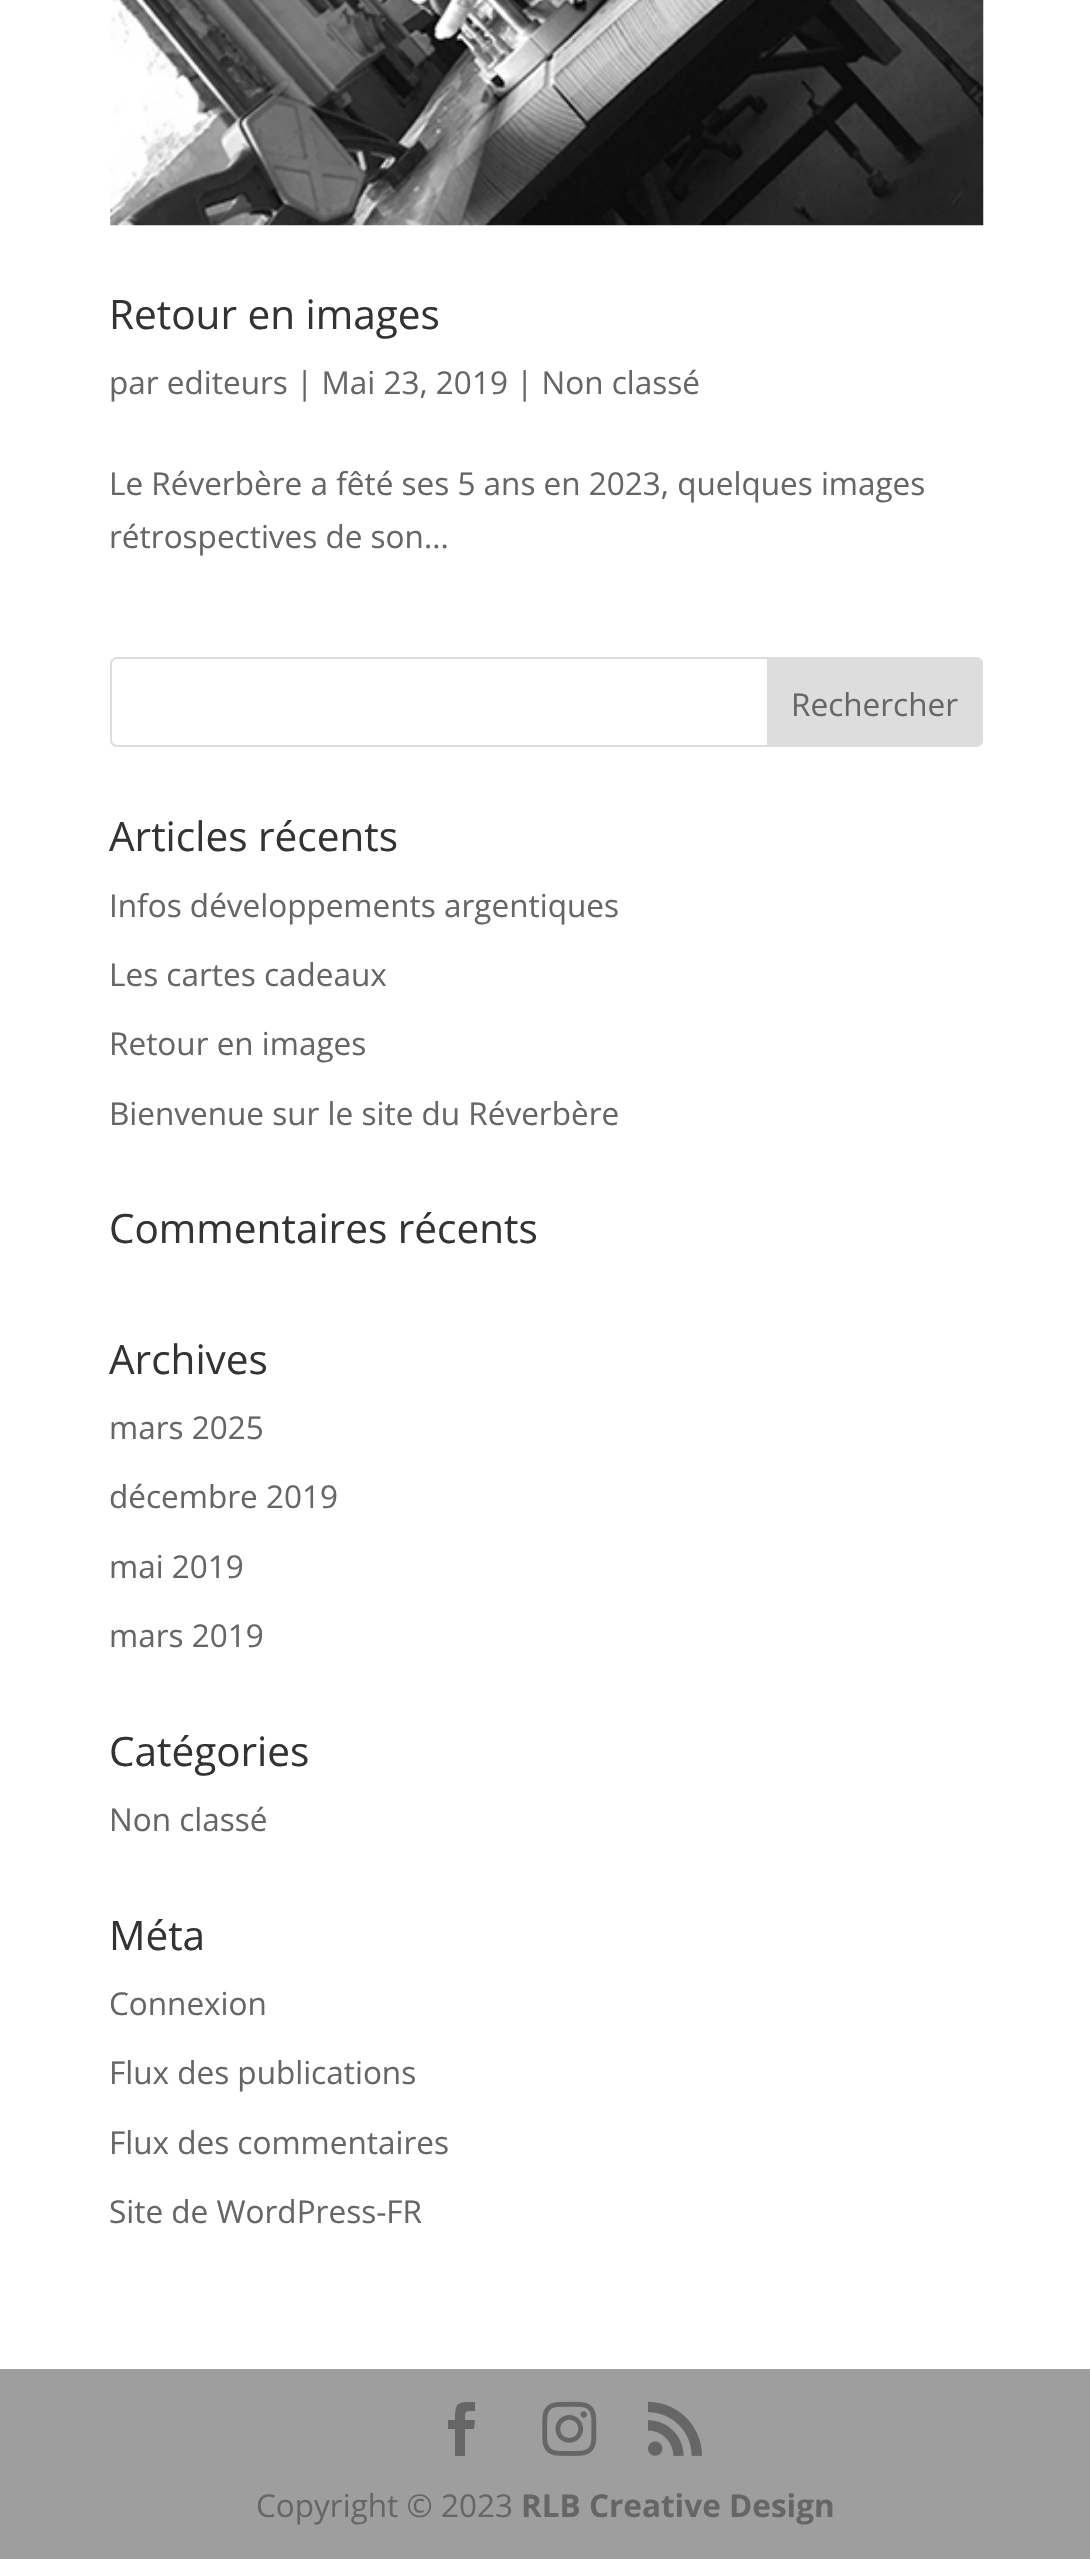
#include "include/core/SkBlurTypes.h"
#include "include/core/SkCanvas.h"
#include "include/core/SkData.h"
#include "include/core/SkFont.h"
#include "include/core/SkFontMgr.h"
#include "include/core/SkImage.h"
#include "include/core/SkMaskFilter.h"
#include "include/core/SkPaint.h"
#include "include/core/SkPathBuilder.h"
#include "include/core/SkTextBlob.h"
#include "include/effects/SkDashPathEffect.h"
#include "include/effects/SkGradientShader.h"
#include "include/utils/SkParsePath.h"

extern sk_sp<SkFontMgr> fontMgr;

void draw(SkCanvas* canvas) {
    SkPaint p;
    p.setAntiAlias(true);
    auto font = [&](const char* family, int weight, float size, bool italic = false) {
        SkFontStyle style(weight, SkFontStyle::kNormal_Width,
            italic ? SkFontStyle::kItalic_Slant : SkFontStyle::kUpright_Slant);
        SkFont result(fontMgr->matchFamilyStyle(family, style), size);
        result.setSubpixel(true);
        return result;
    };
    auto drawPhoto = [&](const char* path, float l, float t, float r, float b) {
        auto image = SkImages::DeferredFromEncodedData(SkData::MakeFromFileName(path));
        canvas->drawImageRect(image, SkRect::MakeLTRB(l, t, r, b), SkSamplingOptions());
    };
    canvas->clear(0xFFFFFFFF);
    drawPhoto("media/1.png", 110, 0, 984, 226);
    auto font1 = font("Open Sans", 400, 40.5f);
    p.setColor(0xFF333333);
    canvas->drawString("Retour en images", 109, 329, font1, p);
    auto font2 = font("Open Sans", 400, 31.5f);
    p.setColor(0xFF666666);
    {
        const struct { const char* s; float x, y; } items[] = {
            {"par editeurs | Mai 23, 2019 | Non classé", 109, 394},
            {"Le Réverbère a fêté ses 5 ans en 2023, quelques images", 109, 495},
            {"rétrospectives de son...", 109, 548},
        };
        for (auto [s, x, y] : items) {
            canvas->drawString(s, x, y, font2, p);
        }
    }
    p.setStyle(SkPaint::kStroke_Style);
    p.setStrokeWidth(2);
    p.setColor(0xFFDDDDDD);
    canvas->drawRoundRect(SkRect::MakeLTRB(111, 658, 982, 746), 6, 6, p);
    p.setStyle(SkPaint::kFill_Style);
    canvas->drawPath(SkPathBuilder().moveTo(768, 658).lineTo(976, 658).cubicTo(979.5f, 658, 982, 660.5f, 982, 664).lineTo(982, 740).cubicTo(982, 743.5f, 979.5f, 746, 976, 746).lineTo(768, 746).close().detach(), p);
    p.setStyle(SkPaint::kStroke_Style);
    canvas->drawPath(SkPathBuilder().moveTo(768, 658).lineTo(976, 658).cubicTo(979.5f, 658, 982, 660.5f, 982, 664).lineTo(982, 740).cubicTo(982, 743.5f, 979.5f, 746, 976, 746).lineTo(768, 746).close().detach(), p);
    p.setStyle(SkPaint::kFill_Style);
    p.setColor(0xFF666666);
    canvas->drawString("Rechercher", 791, 716, font2, p);
    p.setColor(0xFF333333);
    canvas->drawString("Articles récents", 109, 851, font1, p);
    p.setColor(0xFF666666);
    {
        const struct { const char* s; float x, y; } items[] = {
            {"Infos développements argentiques", 109, 917},
            {"Les cartes cadeaux", 109, 986},
            {"Retour en images", 109, 1055},
            {"Bienvenue sur le site du Réverbère", 109, 1125},
        };
        for (auto [s, x, y] : items) {
            canvas->drawString(s, x, y, font2, p);
        }
    }
    p.setColor(0xFF333333);
    canvas->drawString("Commentaires récents", 109, 1243, font1, p);
    canvas->drawString("Archives", 109, 1374, font1, p);
    p.setColor(0xFF666666);
    {
        const struct { const char* s; float x, y; } items[] = {
            {"mars 2025", 109, 1439},
            {"décembre 2019", 109, 1508},
            {"mai 2019", 109, 1578},
            {"mars 2019", 109, 1647},
        };
        for (auto [s, x, y] : items) {
            canvas->drawString(s, x, y, font2, p);
        }
    }
    p.setColor(0xFF333333);
    canvas->drawString("Catégories", 109, 1766, font1, p);
    p.setColor(0xFF666666);
    canvas->drawString("Non classé", 109, 1831, font2, p);
    p.setColor(0xFF333333);
    canvas->drawString("Méta", 109, 1950, font1, p);
    p.setColor(0xFF666666);
    {
        const struct { const char* s; float x, y; } items[] = {
            {"Connexion", 109, 2015},
            {"Flux des publications", 109, 2084},
            {"Flux des commentaires", 109, 2154},
            {"Site de WordPress-FR", 109, 2223},
        };
        for (auto [s, x, y] : items) {
            canvas->drawString(s, x, y, font2, p);
        }
    }
    p.setColor(0xFF9E9E9E);
    canvas->drawRect(SkRect::MakeLTRB(0, 2369, 1090, 2559), p);
    p.setColor(0xFF666666);
    canvas->drawPath(SkPathBuilder().moveTo(455, 2456).lineTo(465, 2456).lineTo(465, 2429).lineTo(474, 2429).lineTo(475, 2420).lineTo(465, 2420).cubicTo(465, 2410, 465, 2411, 475, 2411).lineTo(475, 2402).cubicTo(458, 2402, 455, 2401, 455, 2420).lineTo(448, 2420).lineTo(448, 2429).lineTo(455, 2429).close().detach(), p);
    drawPhoto("media/2.png", 542, 2401, 597, 2456);
    drawPhoto("media/3.png", 648, 2401, 702, 2456);
    canvas->drawString("Copyright © 2023", 256, 2517, font2, p);
    auto font3 = font("Open Sans", 700, 31.5f);
    canvas->drawString("RLB Creative Design", 521, 2517, font3, p);
}
